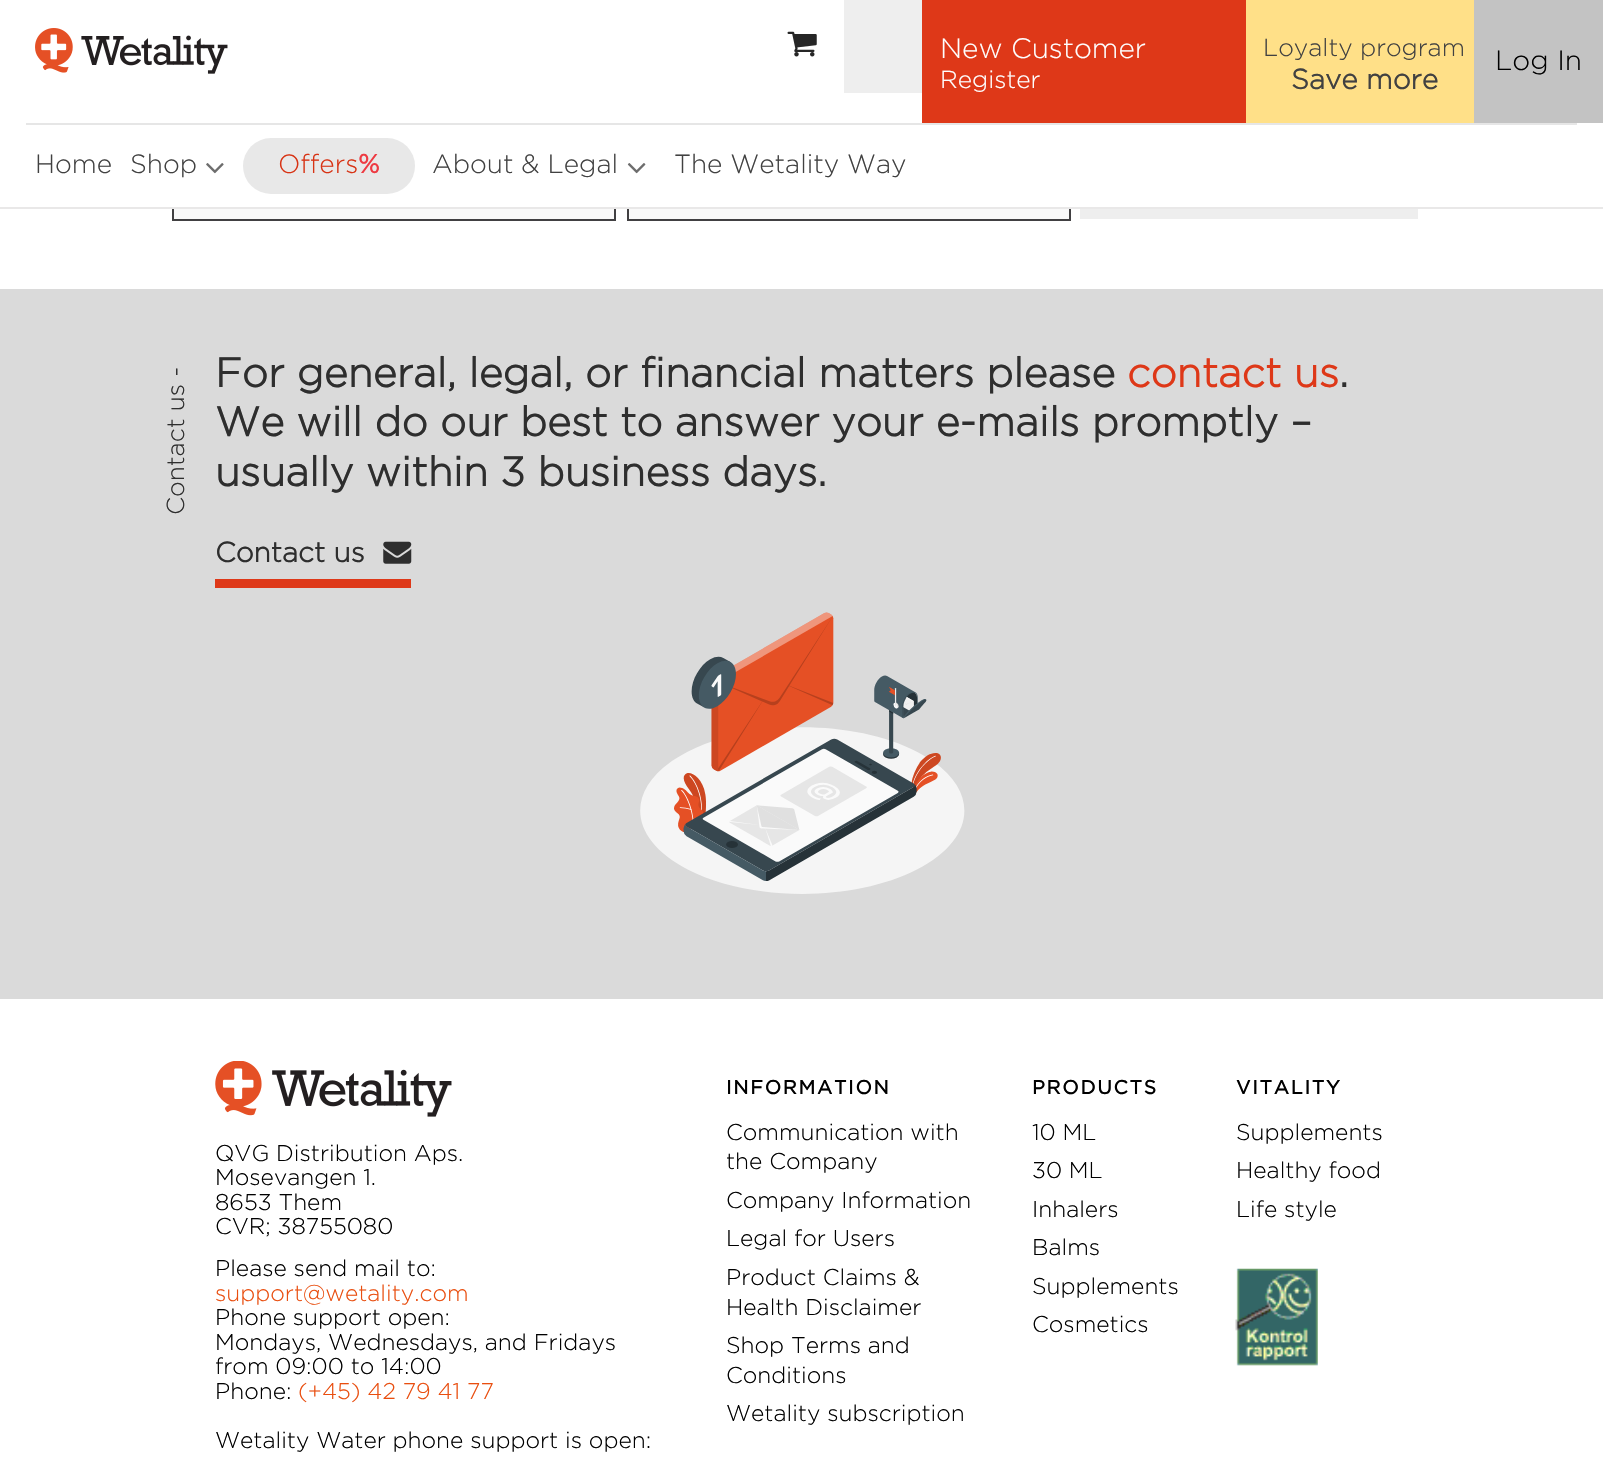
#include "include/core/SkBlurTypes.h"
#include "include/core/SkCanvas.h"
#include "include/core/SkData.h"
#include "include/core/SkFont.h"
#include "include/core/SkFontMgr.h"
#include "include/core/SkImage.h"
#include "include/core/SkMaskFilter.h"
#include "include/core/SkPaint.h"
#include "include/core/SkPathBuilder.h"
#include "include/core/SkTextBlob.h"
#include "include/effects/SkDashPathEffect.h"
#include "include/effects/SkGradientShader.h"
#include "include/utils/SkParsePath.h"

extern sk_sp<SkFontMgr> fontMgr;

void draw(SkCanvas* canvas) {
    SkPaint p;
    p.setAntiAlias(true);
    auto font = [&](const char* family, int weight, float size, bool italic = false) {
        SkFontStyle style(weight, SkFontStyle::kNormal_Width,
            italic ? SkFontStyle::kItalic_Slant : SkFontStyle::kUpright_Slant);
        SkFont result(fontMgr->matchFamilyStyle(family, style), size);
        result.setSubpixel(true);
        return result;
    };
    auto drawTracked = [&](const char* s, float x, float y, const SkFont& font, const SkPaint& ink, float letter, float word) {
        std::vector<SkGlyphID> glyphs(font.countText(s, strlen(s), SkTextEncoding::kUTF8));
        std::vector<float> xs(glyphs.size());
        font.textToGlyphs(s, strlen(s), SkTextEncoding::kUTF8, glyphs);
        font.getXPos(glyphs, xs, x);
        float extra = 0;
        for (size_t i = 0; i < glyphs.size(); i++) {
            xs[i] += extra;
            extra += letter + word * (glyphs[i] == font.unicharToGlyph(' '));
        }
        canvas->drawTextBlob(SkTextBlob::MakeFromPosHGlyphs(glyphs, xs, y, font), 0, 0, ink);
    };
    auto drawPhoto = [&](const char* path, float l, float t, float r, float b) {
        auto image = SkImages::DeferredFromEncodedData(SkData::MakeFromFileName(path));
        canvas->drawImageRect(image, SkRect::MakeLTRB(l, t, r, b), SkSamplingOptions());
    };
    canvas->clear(0xFFFFFFFF);
    p.setColor(0xFFF9F9F9);
    canvas->drawRect(SkRect::MakeLTRB(174, 209, 614, 219), p);
    p.setStyle(SkPaint::kStroke_Style);
    p.setStrokeWidth(2);
    p.setColor(0xFF414042);
    canvas->drawRect(SkRect::MakeLTRB(173, 139, 615, 220), p);
    p.setStyle(SkPaint::kFill_Style);
    p.setColor(0xFFF9F9F9);
    canvas->drawRect(SkRect::MakeLTRB(629, 209, 1069, 219), p);
    p.setStyle(SkPaint::kStroke_Style);
    p.setColor(0xFF414042);
    canvas->drawRect(SkRect::MakeLTRB(628, 139, 1070, 220), p);
    p.setStyle(SkPaint::kFill_Style);
    p.setColor(0xFFFFFFFF);
    canvas->drawRect(SkRect::MakeLTRB(172, 138, 1071, 207), p);
    p.setColor(0xFFE9E8E8);
    canvas->drawRect(SkRect::MakeLTRB(0, 207, 1603, 209), p);
    drawPhoto("media/1.png", 35, 28, 228, 74);
    drawPhoto("media/2.png", 787, 31, 817, 57);
    p.setColor(0xFFEEEEEE);
    canvas->drawRect(SkRect::MakeLTRB(844, 0, 922, 93), p);
    p.setColor(0xFFDE3818);
    canvas->drawRect(SkRect::MakeLTRB(922, 0, 1246, 123), p);
    auto font1 = font("Gotham", 300, 28);
    p.setColor(0xFFFFFFFF);
    canvas->drawString("New Customer", 940, 58, font1, p);
    auto font2 = font("Gotham", 300, 24.5f);
    canvas->drawString("Register", 940, 88, font2, p);
    p.setColor(0xFFFFE088);
    canvas->drawRect(SkRect::MakeLTRB(1246, 0, 1474, 123), p);
    p.setColor(0xFF414141);
    canvas->drawString("Loyalty program", 1263, 56, font2, p);
    auto font3 = font("Gotham", 700, 28);
    canvas->drawString("Save more", 1291, 89, font3, p);
    p.setColor(0xFFC3C3C3);
    canvas->drawRect(SkRect::MakeLTRB(1474, 0, 1603, 123), p);
    p.setColor(0xFF000000);
    canvas->drawString("Log In", 1495, 70, font1, p);
    p.setColor(0xFFE6E6E6);
    canvas->drawRect(SkRect::MakeLTRB(26, 123, 1577, 125), p);
    auto font4 = font("Gotham", 300, 26.25f);
    p.setColor(0xFF414141);
    canvas->drawString("Home", 35, 173, font4, p);
    canvas->drawString("Shop", 130, 173, font4, p);
    drawPhoto("media/3.png", 206, 163, 224, 174);
    p.setColor(0xFFE8E8E8);
    canvas->drawRoundRect(SkRect::MakeLTRB(243, 138, 415, 194), 28, 28, p);
    p.setColor(0xFFD83314);
    canvas->drawString("Offers", 278, 173, font4, p);
    auto font5 = font("Gotham", 700, 26.25f);
    p.setColor(0xFFEE3A42);
    canvas->drawString("%", 358, 173, font5, p);
    p.setColor(0xFF414141);
    canvas->drawString("About & Legal", 432, 173, font4, p);
    drawPhoto("media/4.png", 627, 163, 646, 174);
    canvas->drawString("The Wetality Way", 674, 173, font4, p);
    p.setColor(0xFFEEEEEE);
    canvas->drawRect(SkRect::MakeLTRB(1080, 209, 1418, 219), p);
    p.setColor(0xFFDADADA);
    canvas->drawRect(SkRect::MakeLTRB(0, 289, 1603, 999), p);
    p.setColor(0xFF2E2E2E);
    canvas->save();
    canvas->rotate(-90, 184, 515);
    canvas->drawString("Contact us -", 184, 515, font2, p);
    canvas->restore();
    auto font6 = font("Gotham", 700, 40.95f);
    canvas->drawString("For general, legal, or financial matters please", 215, 387, font6, p);
    p.setColor(0xFFDE3818);
    canvas->drawString("contact us", 1127, 387, font6, p);
    p.setColor(0xFF2E2E2E);
    {
        const struct { const char* s; float x, y; } items[] = {
            {".", 1339, 387},
            {"We will do our best to answer your e-mails promptly –", 215, 436},
            {"usually within 3 business days.", 215, 486},
        };
        for (auto [s, x, y] : items) {
            canvas->drawString(s, x, y, font6, p);
        }
    }
    p.setColor(0xFFDE3818);
    canvas->drawRect(SkRect::MakeLTRB(215, 579, 411, 588), p);
    p.setColor(0xFF2E2E2E);
    canvas->drawString("Contact us", 215, 562, font3, p);
    drawPhoto("media/5.png", 383, 541, 412, 564);
    drawPhoto("media/6.png", 640, 612, 965, 894);
    drawPhoto("media/7.png", 215, 1061, 452, 1117);
    auto font7 = font("Gotham", 300, 22.75f);
    p.setColor(0xFF000000);
    {
        const struct { const char* s; float x, y; } items[] = {
            {"QVG Distribution Aps.", 215, 1161},
            {"Mosevangen 1.", 215, 1185},
            {"8653 Them", 215, 1210},
            {"CVR; 38755080", 215, 1234},
            {"Please send mail to:", 215, 1276},
        };
        for (auto [s, x, y] : items) {
            canvas->drawString(s, x, y, font7, p);
        }
    }
    p.setColor(0xFFE94E0F);
    canvas->drawString("support@wetality.com", 215, 1301, font7, p);
    p.setColor(0xFF000000);
    {
        const struct { const char* s; float x, y; } items[] = {
            {"Phone support open:", 215, 1325},
            {"Mondays, Wednesdays, and Fridays", 215, 1350},
            {"from 09:00 to 14:00", 215, 1374},
            {"Phone:", 215, 1399},
        };
        for (auto [s, x, y] : items) {
            canvas->drawString(s, x, y, font7, p);
        }
    }
    p.setColor(0xFFE94E0F);
    canvas->drawString("(+45) 42 79 41 77", 298, 1399, font7, p);
    p.setColor(0xFF000000);
    canvas->drawString("Wetality Water phone support is open:", 215, 1448, font7, p);
    auto font8 = font("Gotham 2", 700, 19.25f);
    drawTracked("INFORMATION", 726, 1094, font8, p, 1.75f, 0);
    {
        const struct { const char* s; float x, y; } items[] = {
            {"Communication with", 726, 1140},
            {"the Company", 726, 1169},
            {"Company Information", 726, 1208},
            {"Legal for Users", 726, 1246},
            {"Product Claims &", 726, 1285},
            {"Health Disclaimer", 726, 1315},
            {"Shop Terms and", 726, 1353},
            {"Conditions", 726, 1383},
            {"Wetality subscription", 726, 1421},
        };
        for (auto [s, x, y] : items) {
            canvas->drawString(s, x, y, font7, p);
        }
    }
    drawTracked("PRODUCTS", 1032, 1094, font8, p, 1.75f, 0);
    {
        const struct { const char* s; float x, y; } items[] = {
            {"10 ML", 1032, 1140},
            {"30 ML", 1032, 1178},
            {"Inhalers", 1032, 1217},
            {"Balms", 1032, 1255},
            {"Supplements", 1032, 1294},
            {"Cosmetics", 1032, 1332},
        };
        for (auto [s, x, y] : items) {
            canvas->drawString(s, x, y, font7, p);
        }
    }
    drawTracked("VITALITY", 1236, 1094, font8, p, 1.75f, 0);
    {
        const struct { const char* s; float x, y; } items[] = {
            {"Supplements", 1236, 1140},
            {"Healthy food", 1236, 1178},
            {"Life style", 1236, 1217},
        };
        for (auto [s, x, y] : items) {
            canvas->drawString(s, x, y, font7, p);
        }
    }
    drawPhoto("media/8.png", 1235, 1268, 1318, 1366);
}
